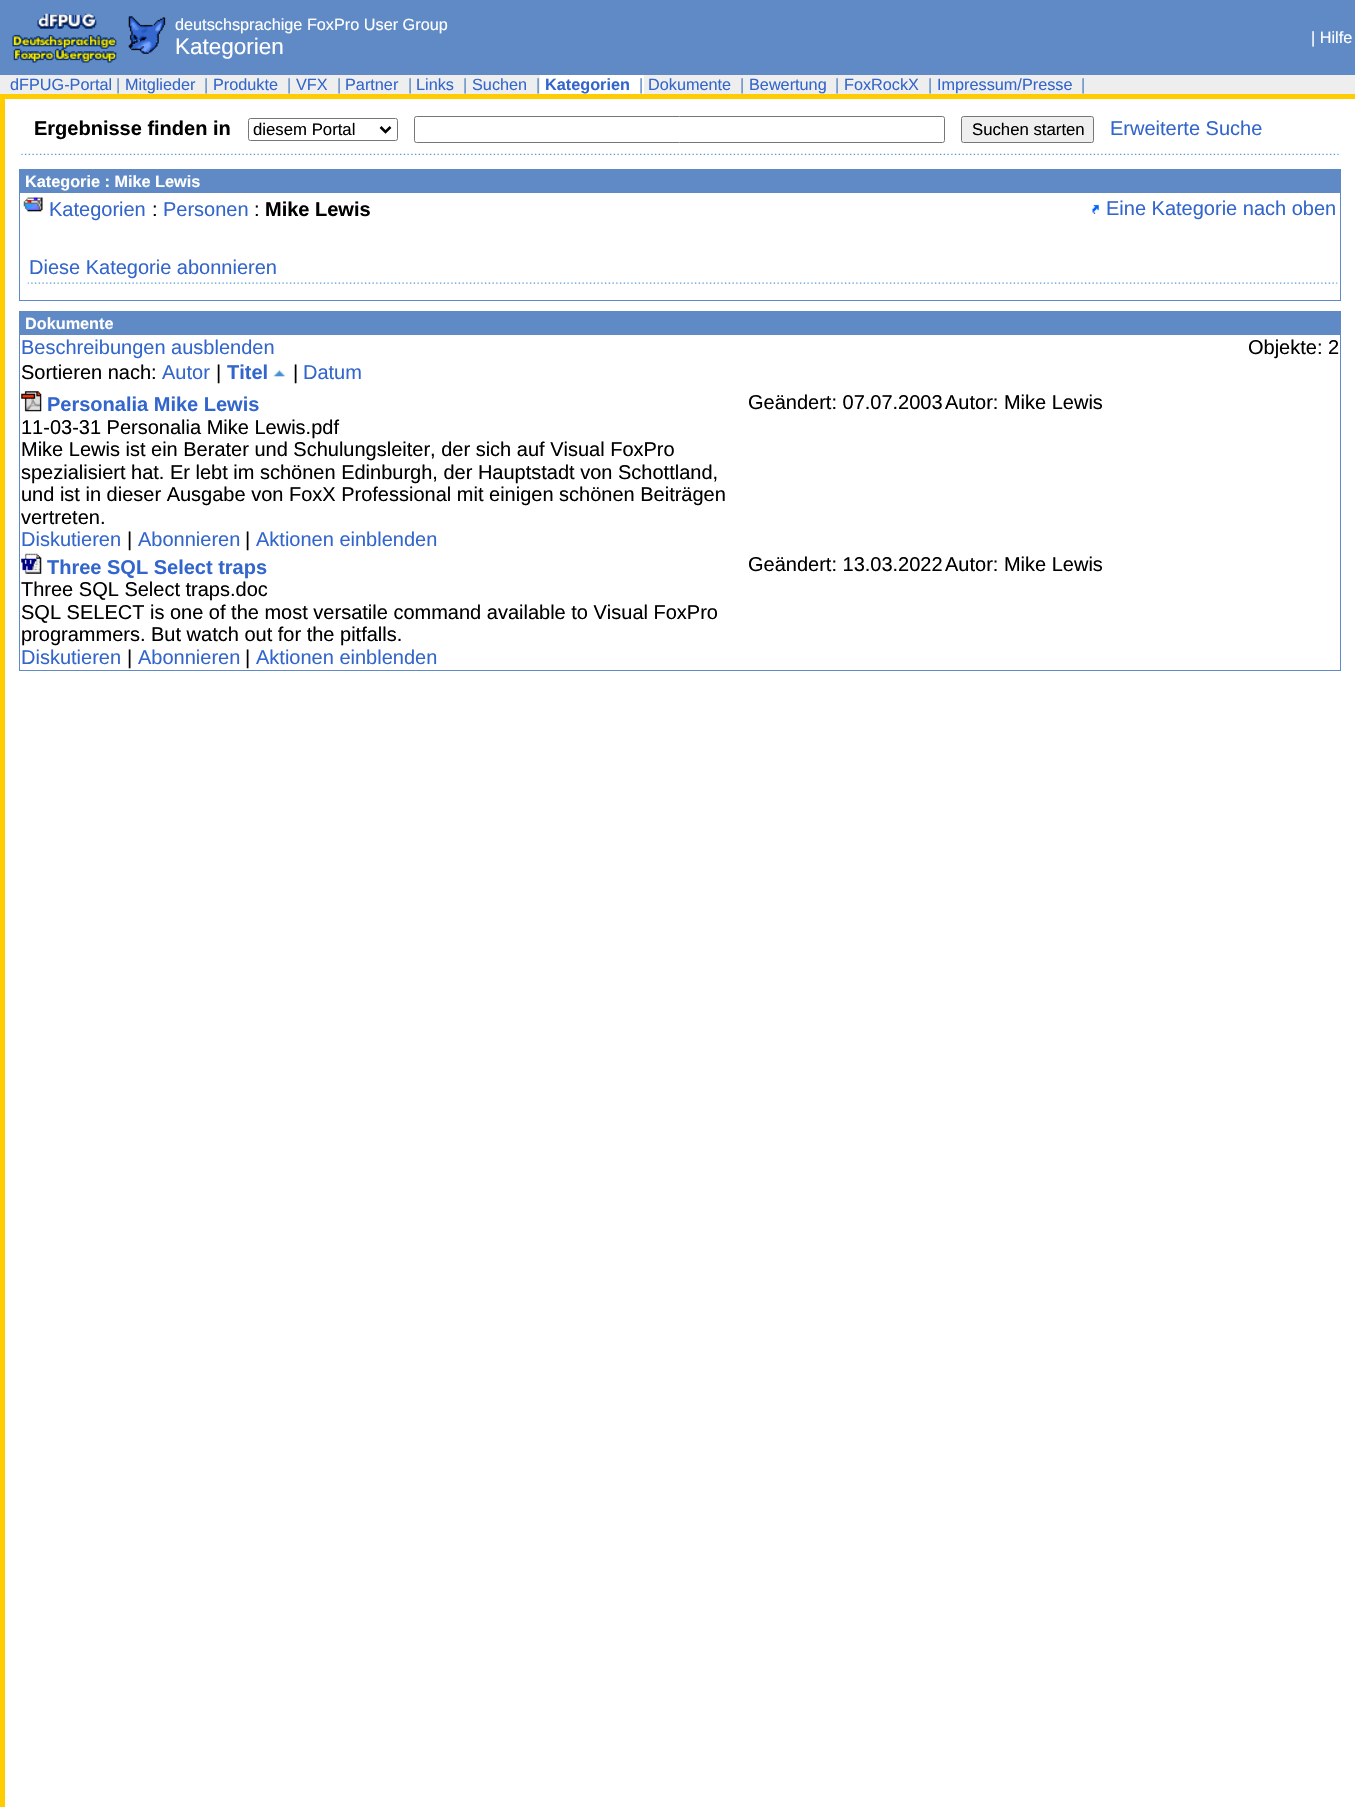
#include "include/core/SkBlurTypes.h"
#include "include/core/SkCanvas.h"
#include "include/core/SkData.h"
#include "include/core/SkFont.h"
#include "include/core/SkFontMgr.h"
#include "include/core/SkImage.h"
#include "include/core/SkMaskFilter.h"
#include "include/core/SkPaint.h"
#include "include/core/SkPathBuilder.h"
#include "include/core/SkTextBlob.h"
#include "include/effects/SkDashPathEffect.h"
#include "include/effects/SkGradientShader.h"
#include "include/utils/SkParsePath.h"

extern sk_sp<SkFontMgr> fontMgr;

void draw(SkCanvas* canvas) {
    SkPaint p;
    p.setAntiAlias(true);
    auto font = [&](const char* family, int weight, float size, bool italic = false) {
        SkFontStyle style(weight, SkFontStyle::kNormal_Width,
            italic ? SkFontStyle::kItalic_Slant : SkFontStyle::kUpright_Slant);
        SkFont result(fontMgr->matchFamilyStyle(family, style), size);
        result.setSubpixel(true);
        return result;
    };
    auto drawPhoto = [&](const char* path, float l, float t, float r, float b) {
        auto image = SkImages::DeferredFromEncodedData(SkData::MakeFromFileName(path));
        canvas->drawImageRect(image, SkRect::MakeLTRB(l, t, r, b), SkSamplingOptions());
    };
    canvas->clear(0xFFFFFFFF);
    p.setColor(0xFF5F8AC5);
    canvas->drawRect(SkRect::MakeLTRB(0, 0, 1355, 75), p);
    drawPhoto("media/1.png", 12, 13, 166, 63);
    auto font1 = font("Liberation Sans", 400, 16.25f);
    p.setColor(0xFFFFFFFF);
    canvas->drawString("deutschsprachige FoxPro User Group", 175, 30, font1, p);
    auto font2 = font("Liberation Sans", 400, 22.5f);
    canvas->drawString("Kategorien", 175, 54, font2, p);
    canvas->drawString("| Hilfe", 1311, 43, font1, p);
    p.setColor(0xFFEEEEEE);
    canvas->drawRect(SkRect::MakeLTRB(0, 75, 1355, 94), p);
    p.setColor(0xFF3366CC);
    canvas->drawString("dFPUG-Portal", 10, 90, font1, p);
    p.setColor(0xFF5F8AC5);
    canvas->drawString("|", 116, 90, font1, p);
    p.setColor(0xFF3366CC);
    canvas->drawString("Mitglieder", 125, 90, font1, p);
    p.setColor(0xFF5F8AC5);
    canvas->drawString("|", 204, 90, font1, p);
    p.setColor(0xFF3366CC);
    canvas->drawString("Produkte", 213, 90, font1, p);
    p.setColor(0xFF5F8AC5);
    canvas->drawString("|", 287, 90, font1, p);
    p.setColor(0xFF3366CC);
    canvas->drawString("VFX", 296, 90, font1, p);
    p.setColor(0xFF5F8AC5);
    canvas->drawString("|", 337, 90, font1, p);
    p.setColor(0xFF3366CC);
    canvas->drawString("Partner", 345, 90, font1, p);
    p.setColor(0xFF5F8AC5);
    canvas->drawString("|", 408, 90, font1, p);
    p.setColor(0xFF3366CC);
    canvas->drawString("Links", 416, 90, font1, p);
    p.setColor(0xFF5F8AC5);
    canvas->drawString("|", 463, 90, font1, p);
    p.setColor(0xFF3366CC);
    canvas->drawString("Suchen", 472, 90, font1, p);
    p.setColor(0xFF5F8AC5);
    canvas->drawString("|", 536, 90, font1, p);
    p.setColor(0xFFFFFFFF);
    canvas->drawRect(SkRect::MakeLTRB(540, 75, 644, 94), p);
    auto font3 = font("Liberation Sans", 700, 16.25f);
    p.setColor(0xFF3366CC);
    canvas->drawString("Kategorien", 545, 90, font3, p);
    p.setColor(0xFF5F8AC5);
    canvas->drawString("|", 639, 90, font1, p);
    p.setColor(0xFF3366CC);
    canvas->drawString("Dokumente", 648, 90, font1, p);
    p.setColor(0xFF5F8AC5);
    canvas->drawString("|", 740, 90, font1, p);
    p.setColor(0xFF3366CC);
    canvas->drawString("Bewertung", 749, 90, font1, p);
    p.setColor(0xFF5F8AC5);
    canvas->drawString("|", 835, 90, font1, p);
    p.setColor(0xFF3366CC);
    canvas->drawString("FoxRockX", 844, 90, font1, p);
    p.setColor(0xFF5F8AC5);
    canvas->drawString("|", 928, 90, font1, p);
    p.setColor(0xFF3366CC);
    canvas->drawString("Impressum/Presse", 937, 90, font1, p);
    p.setColor(0xFF5F8AC5);
    canvas->drawString("|", 1081, 90, font1, p);
    p.setColor(0xFFFFCC00);
    canvas->drawRect(SkRect::MakeLTRB(0, 94, 1355, 99), p);
    canvas->drawRect(SkRect::MakeLTRB(0, 99, 5, 1807), p);
    auto font4 = font("Liberation Sans", 700, 20);
    p.setColor(0xFF000000);
    canvas->drawString("Ergebnisse finden in", 34, 135, font4, p);
    p.setStyle(SkPaint::kStroke_Style);
    p.setStrokeWidth(1);
    p.setColor(0xFF767676);
    canvas->drawRoundRect(SkRect::MakeLTRB(248.5f, 118.5f, 397.5f, 140.5f), 2, 2, p);
    p.setStrokeWidth(2.5f);
    p.setColor(0xFF000000);
    canvas->drawPath(SkPathBuilder().moveTo(380.5f, 127).lineTo(385.5f, 132).lineTo(390.5f, 127).detach(), p);
    auto font5 = font("Liberation Sans", 400, 16.75f);
    p.setStyle(SkPaint::kFill_Style);
    canvas->drawString("diesem Portal", 253, 135, font5, p);
    p.setStyle(SkPaint::kStroke_Style);
    p.setStrokeWidth(1);
    p.setColor(0xFF767676);
    canvas->drawRoundRect(SkRect::MakeLTRB(414.5f, 116.5f, 944.5f, 142.5f), 2, 2, p);
    p.setStyle(SkPaint::kFill_Style);
    p.setColor(0xFFEFEFEF);
    canvas->drawRoundRect(SkRect::MakeLTRB(961.5f, 116.5f, 1093.5f, 142.5f), 2, 2, p);
    p.setStyle(SkPaint::kStroke_Style);
    p.setColor(0xFF767676);
    canvas->drawRoundRect(SkRect::MakeLTRB(961.5f, 116.5f, 1093.5f, 142.5f), 2, 2, p);
    p.setStyle(SkPaint::kFill_Style);
    p.setColor(0xFF000000);
    canvas->drawString("Suchen starten", 972, 135, font5, p);
    auto font6 = font("Liberation Sans", 400, 20);
    p.setColor(0xFF3366CC);
    canvas->drawString("Erweiterte Suche", 1110, 135, font6, p);
    drawPhoto("media/2.png", 21, 153, 1339, 155);
    p.setColor(0xFF5F8AC5);
    canvas->drawRect(SkRect::MakeLTRB(19, 169, 1341, 301), p);
    p.setColor(0xFFFFFFFF);
    canvas->drawString("Kategorie : Mike Lewis", 25, 187, font3, p);
    canvas->drawRect(SkRect::MakeLTRB(20, 193, 1340, 300), p);
    drawPhoto("media/3.png", 23, 197, 43, 212);
    p.setColor(0xFF3366CC);
    canvas->drawString("Kategorien", 49, 216, font6, p);
    p.setColor(0xFF000000);
    canvas->drawString(":", 152, 216, font6, p);
    p.setColor(0xFF3366CC);
    canvas->drawString("Personen", 163, 216, font6, p);
    p.setColor(0xFF000000);
    canvas->drawString(":", 254, 216, font6, p);
    canvas->drawString("Mike Lewis", 265, 216, font4, p);
    drawPhoto("media/4.png", 1092, 204, 1099, 214);
    p.setColor(0xFF3366CC);
    canvas->drawString("Eine Kategorie nach oben", 1106, 215, font6, p);
    canvas->drawString("Diese Kategorie abonnieren", 29, 274, font6, p);
    drawPhoto("media/5.png", 27, 282, 1338, 284);
    p.setColor(0xFF5F8AC5);
    canvas->drawRect(SkRect::MakeLTRB(19, 311, 1341, 671), p);
    p.setColor(0xFFFFFFFF);
    canvas->drawString("Dokumente", 25, 329, font3, p);
    canvas->drawRect(SkRect::MakeLTRB(20, 335, 1340, 670), p);
    p.setColor(0xFF3366CC);
    canvas->drawString("Beschreibungen ausblenden", 21, 354, font6, p);
    p.setColor(0xFF000000);
    canvas->drawString("Objekte: 2", 1248, 354, font6, p);
    canvas->drawString("Sortieren nach:", 21, 379, font6, p);
    p.setColor(0xFF3366CC);
    canvas->drawString("Autor", 162, 379, font6, p);
    p.setColor(0xFF000000);
    canvas->drawString("|", 216, 379, font6, p);
    p.setColor(0xFF3366CC);
    canvas->drawString("Titel", 227, 379, font4, p);
    drawPhoto("media/6.png", 273, 369, 286, 377);
    p.setColor(0xFF000000);
    canvas->drawString("|", 293, 379, font6, p);
    p.setColor(0xFF3366CC);
    canvas->drawString("Datum", 303, 379, font6, p);
    drawPhoto("media/7.png", 21, 391, 42, 412);
    canvas->drawString("Personalia Mike Lewis", 47, 411, font4, p);
    p.setColor(0xFF000000);
    {
        const struct { const char* s; float x, y; } items[] = {
            {"11-03-31 Personalia Mike Lewis.pdf", 21, 434},
            {"Mike Lewis ist ein Berater und Schulungsleiter, der sich auf Visual FoxPro", 21, 456},
            {"spezialisiert hat. Er lebt im schönen Edinburgh, der Hauptstadt von Schottland,", 21, 479},
            {"und ist in dieser Ausgabe von FoxX Professional mit einigen schönen Beiträgen", 21, 501},
            {"vertreten.", 21, 524},
        };
        for (auto [s, x, y] : items) {
            canvas->drawString(s, x, y, font6, p);
        }
    }
    p.setColor(0xFF3366CC);
    canvas->drawString("Diskutieren", 21, 546, font6, p);
    p.setColor(0xFF000000);
    canvas->drawString("|", 127, 546, font6, p);
    p.setColor(0xFF3366CC);
    canvas->drawString("Abonnieren", 138, 546, font6, p);
    p.setColor(0xFF000000);
    canvas->drawString("|", 245, 546, font6, p);
    p.setColor(0xFF3366CC);
    canvas->drawString("Aktionen einblenden", 256, 546, font6, p);
    p.setColor(0xFF000000);
    canvas->drawString("Geändert: 07.07.2003", 748, 409, font6, p);
    canvas->drawString("Autor: Mike Lewis", 945, 409, font6, p);
    drawPhoto("media/8.png", 21, 553, 42, 574);
    p.setColor(0xFF3366CC);
    canvas->drawString("Three SQL Select traps", 47, 574, font4, p);
    p.setColor(0xFF000000);
    {
        const struct { const char* s; float x, y; } items[] = {
            {"Three SQL Select traps.doc", 21, 596},
            {"SQL SELECT is one of the most versatile command available to Visual FoxPro", 21, 619},
            {"programmers. But watch out for the pitfalls.", 21, 641},
        };
        for (auto [s, x, y] : items) {
            canvas->drawString(s, x, y, font6, p);
        }
    }
    p.setColor(0xFF3366CC);
    canvas->drawString("Diskutieren", 21, 664, font6, p);
    p.setColor(0xFF000000);
    canvas->drawString("|", 127, 664, font6, p);
    p.setColor(0xFF3366CC);
    canvas->drawString("Abonnieren", 138, 664, font6, p);
    p.setColor(0xFF000000);
    canvas->drawString("|", 245, 664, font6, p);
    p.setColor(0xFF3366CC);
    canvas->drawString("Aktionen einblenden", 256, 664, font6, p);
    p.setColor(0xFF000000);
    canvas->drawString("Geändert: 13.03.2022", 748, 571, font6, p);
    canvas->drawString("Autor: Mike Lewis", 945, 571, font6, p);
}
